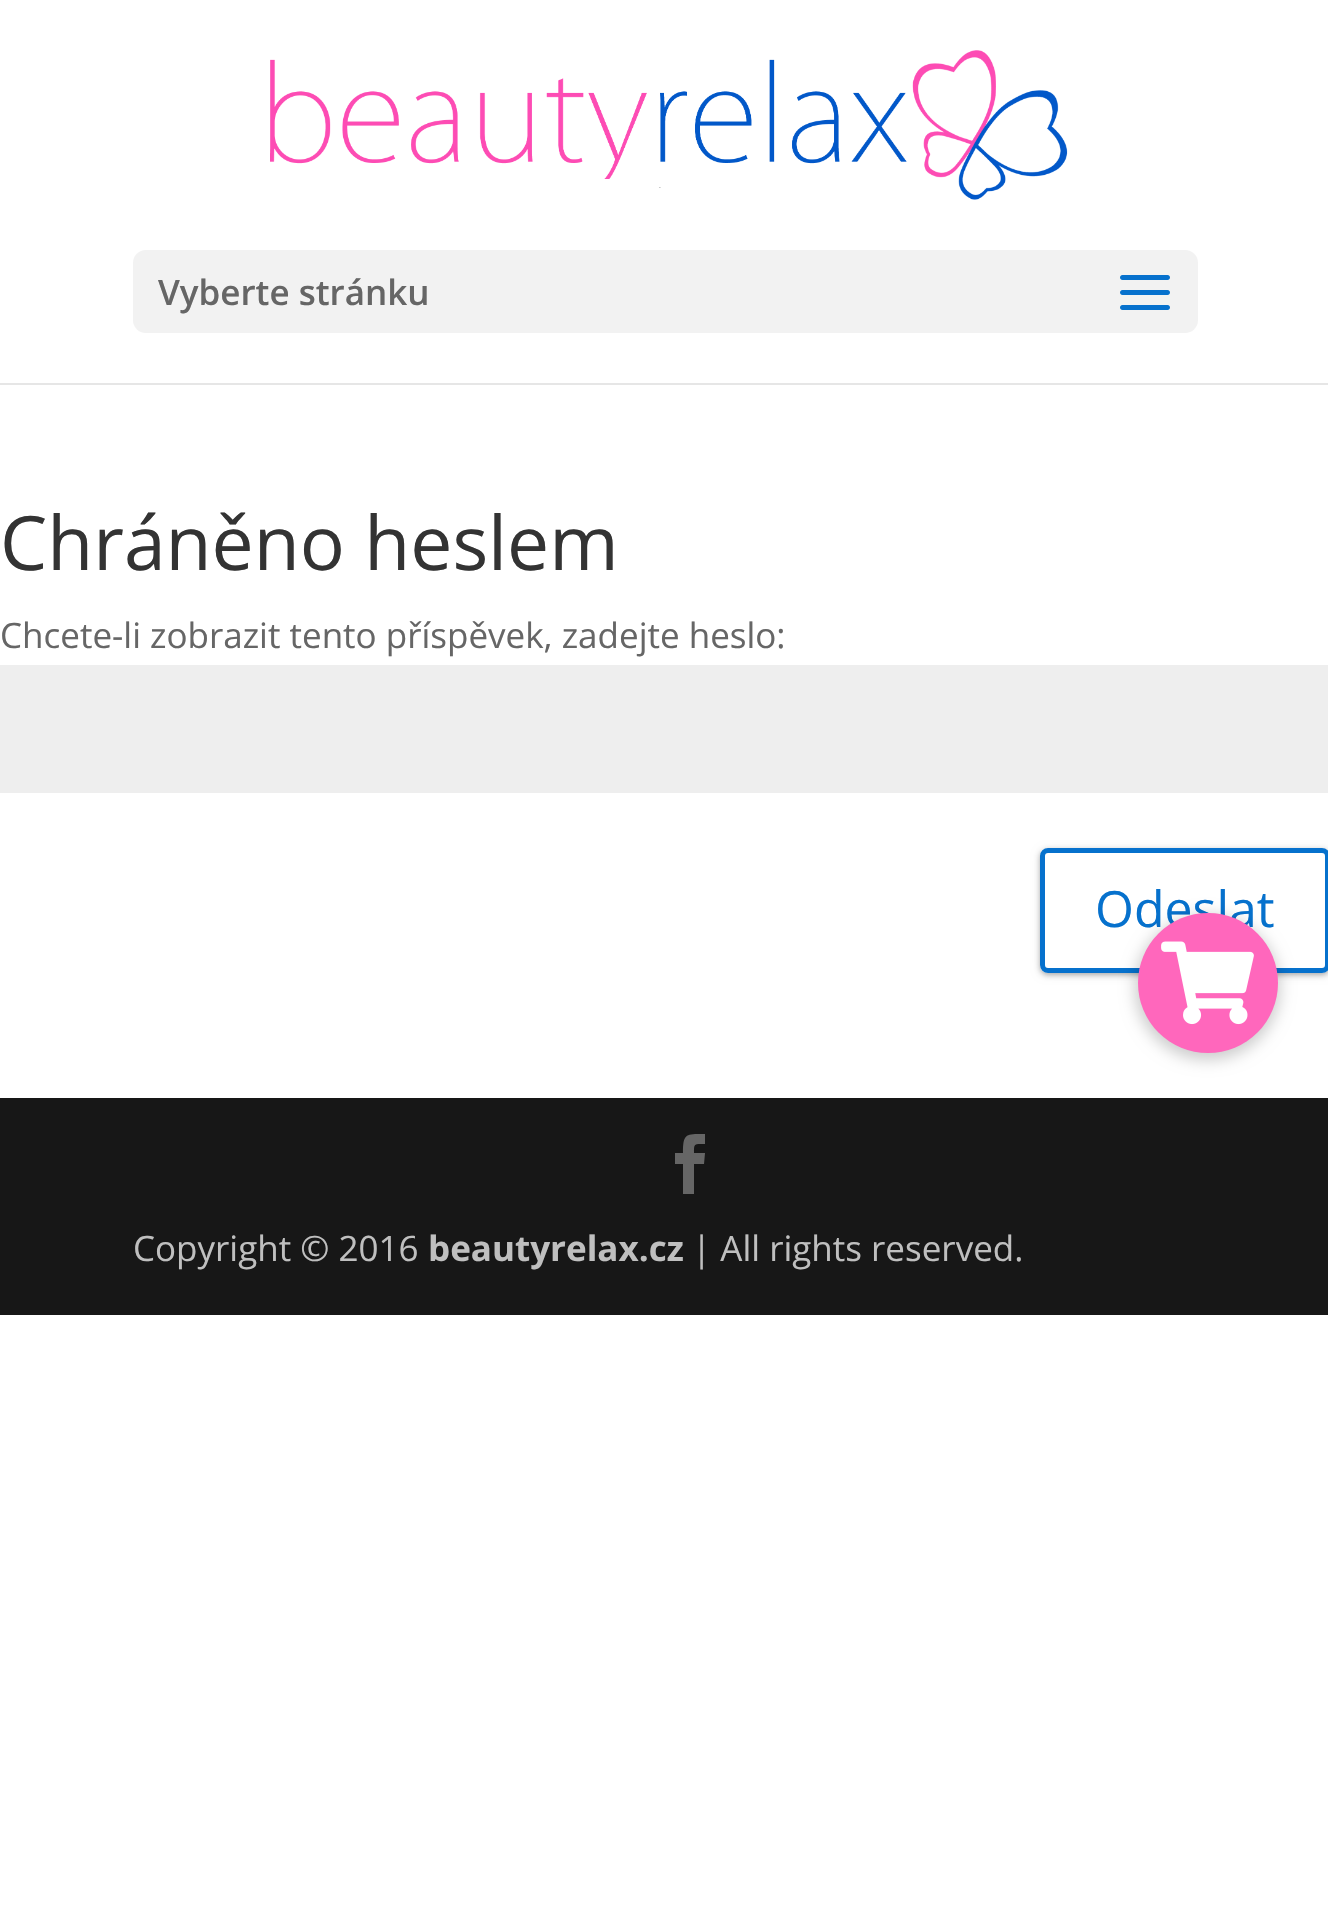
#include "include/core/SkBlurTypes.h"
#include "include/core/SkCanvas.h"
#include "include/core/SkData.h"
#include "include/core/SkFont.h"
#include "include/core/SkFontMgr.h"
#include "include/core/SkImage.h"
#include "include/core/SkMaskFilter.h"
#include "include/core/SkPaint.h"
#include "include/core/SkPathBuilder.h"
#include "include/core/SkTextBlob.h"
#include "include/effects/SkDashPathEffect.h"
#include "include/effects/SkGradientShader.h"
#include "include/utils/SkParsePath.h"

extern sk_sp<SkFontMgr> fontMgr;

void draw(SkCanvas* canvas) {
    SkPaint p;
    p.setAntiAlias(true);
    auto font = [&](const char* family, int weight, float size, bool italic = false) {
        SkFontStyle style(weight, SkFontStyle::kNormal_Width,
            italic ? SkFontStyle::kItalic_Slant : SkFontStyle::kUpright_Slant);
        SkFont result(fontMgr->matchFamilyStyle(family, style), size);
        result.setSubpixel(true);
        return result;
    };
    auto drawPhoto = [&](const char* path, float l, float t, float r, float b) {
        auto image = SkImages::DeferredFromEncodedData(SkData::MakeFromFileName(path));
        canvas->drawImageRect(image, SkRect::MakeLTRB(l, t, r, b), SkSamplingOptions());
    };
    canvas->clear(0xFFFFFFFF);
    p.setColor(0xFFE6E6E6);
    canvas->drawRect(SkRect::MakeLTRB(0, 383, 1328, 385), p);
    drawPhoto("media/1.png", 270, 50, 1068, 200);
    p.setColor(0xFFF2F2F2);
    canvas->drawRoundRect(SkRect::MakeLTRB(133, 250, 1198, 333), 13, 13, p);
    auto font1 = font("Open Sans", 600, 35);
    p.setColor(0xFF666666);
    canvas->drawString("Vyberte stránku", 158, 305, font1, p);
    drawPhoto("media/2.png", 1120, 275, 1170, 310);
    auto font2 = font("Open Sans", 400, 75);
    p.setColor(0xFF333333);
    canvas->drawString("Chráněno heslem", 0, 570, font2, p);
    auto font3 = font("Open Sans", 400, 35);
    p.setColor(0xFF666666);
    canvas->drawString("Chcete-li zobrazit tento příspěvek, zadejte heslo:", 0, 648, font3, p);
    p.setColor(0xFFEEEEEE);
    canvas->drawRect(SkRect::MakeLTRB(0, 665, 1328, 793), p);
    canvas->save();
    canvas->clipPath(SkPathBuilder(SkPathFillType::kEvenOdd).moveTo(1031, 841).lineTo(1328, 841).lineTo(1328, 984).lineTo(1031, 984).close().moveTo(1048, 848).lineTo(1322, 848).cubicTo(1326.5f, 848, 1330, 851.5f, 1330, 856).lineTo(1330, 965).cubicTo(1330, 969.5f, 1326.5f, 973, 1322, 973).lineTo(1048, 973).cubicTo(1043.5f, 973, 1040, 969.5f, 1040, 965).lineTo(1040, 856).cubicTo(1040, 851.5f, 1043.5f, 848, 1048, 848).close().detach(), true);
    p.setColor(0x3D000000);
    p.setMaskFilter(SkMaskFilter::MakeBlur(kNormal_SkBlurStyle, 2.5f));
    canvas->drawRoundRect(SkRect::MakeLTRB(1040, 850, 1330, 975), 8, 8, p);
    p.setMaskFilter(nullptr);
    canvas->restore();
    canvas->save();
    canvas->clipPath(SkPathBuilder(SkPathFillType::kEvenOdd).moveTo(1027, 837).lineTo(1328, 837).lineTo(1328, 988).lineTo(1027, 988).close().moveTo(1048, 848).lineTo(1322, 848).cubicTo(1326.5f, 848, 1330, 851.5f, 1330, 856).lineTo(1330, 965).cubicTo(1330, 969.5f, 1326.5f, 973, 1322, 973).lineTo(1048, 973).cubicTo(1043.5f, 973, 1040, 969.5f, 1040, 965).lineTo(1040, 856).cubicTo(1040, 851.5f, 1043.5f, 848, 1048, 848).close().detach(), true);
    p.setColor(0x1F000000);
    p.setMaskFilter(SkMaskFilter::MakeBlur(kNormal_SkBlurStyle, 4));
    canvas->drawRoundRect(SkRect::MakeLTRB(1040, 850, 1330, 975), 8, 8, p);
    p.setMaskFilter(nullptr);
    canvas->restore();
    p.setStyle(SkPaint::kStroke_Style);
    p.setStrokeWidth(5);
    p.setColor(0xFF0671CD);
    canvas->drawRoundRect(SkRect::MakeLTRB(1042.5f, 850.5f, 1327.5f, 970.5f), 5.5f, 5.5f, p);
    auto font4 = font("Open Sans", 400, 50);
    p.setStyle(SkPaint::kFill_Style);
    canvas->drawString("Odeslat", 1095, 927, font4, p);
    p.setColor(0xFF171717);
    canvas->drawRect(SkRect::MakeLTRB(0, 1098, 1328, 1315), p);
    p.setColor(0xFF666666);
    canvas->drawPath(SkPathBuilder().moveTo(683, 1194).lineTo(694, 1194).lineTo(694, 1164).lineTo(704, 1164).lineTo(705, 1153).lineTo(694, 1153).cubicTo(694, 1143, 694, 1144, 705, 1144).lineTo(705, 1134).cubicTo(686, 1134, 683, 1133, 683, 1153).lineTo(675, 1153).lineTo(675, 1164).lineTo(683, 1164).close().detach(), p);
    p.setColor(0xFFBFBFBF);
    canvas->drawString("Copyright © 2016", 133, 1261, font3, p);
    auto font5 = font("Open Sans", 700, 35);
    canvas->drawString("beautyrelax.cz", 428, 1261, font5, p);
    canvas->drawString("| All rights reserved.", 692, 1261, font3, p);
    p.setColor(0x33000000);
    p.setMaskFilter(SkMaskFilter::MakeBlur(kNormal_SkBlurStyle, 7.5f));
    canvas->drawRoundRect(SkRect::MakeLTRB(1135, 915, 1280, 1060), 72.5f, 72.5f, p);
    p.setMaskFilter(nullptr);
    p.setColor(0xFFFF67BC);
    canvas->drawCircle(1208, 983, 70, p);
    drawPhoto("media/3.png", 1161, 941, 1254, 1025);
}
